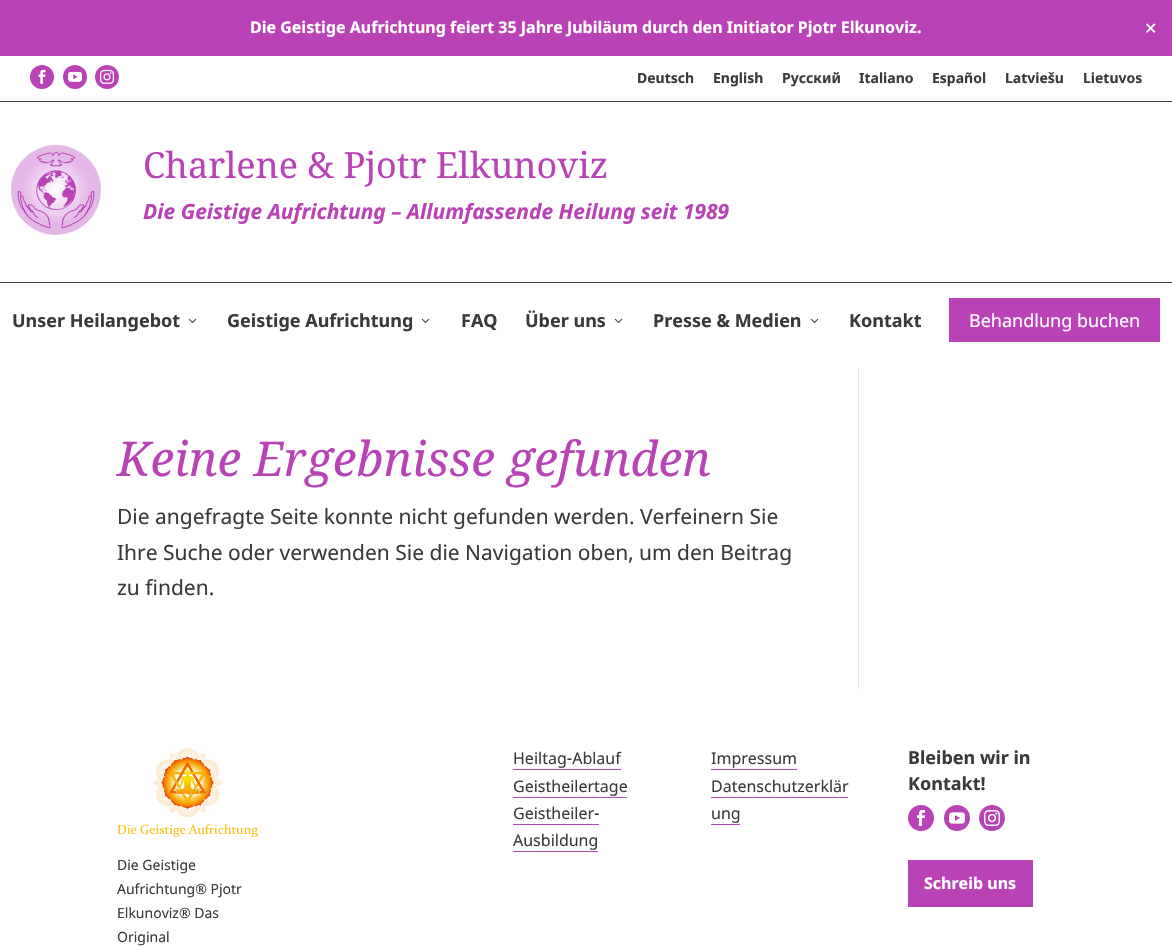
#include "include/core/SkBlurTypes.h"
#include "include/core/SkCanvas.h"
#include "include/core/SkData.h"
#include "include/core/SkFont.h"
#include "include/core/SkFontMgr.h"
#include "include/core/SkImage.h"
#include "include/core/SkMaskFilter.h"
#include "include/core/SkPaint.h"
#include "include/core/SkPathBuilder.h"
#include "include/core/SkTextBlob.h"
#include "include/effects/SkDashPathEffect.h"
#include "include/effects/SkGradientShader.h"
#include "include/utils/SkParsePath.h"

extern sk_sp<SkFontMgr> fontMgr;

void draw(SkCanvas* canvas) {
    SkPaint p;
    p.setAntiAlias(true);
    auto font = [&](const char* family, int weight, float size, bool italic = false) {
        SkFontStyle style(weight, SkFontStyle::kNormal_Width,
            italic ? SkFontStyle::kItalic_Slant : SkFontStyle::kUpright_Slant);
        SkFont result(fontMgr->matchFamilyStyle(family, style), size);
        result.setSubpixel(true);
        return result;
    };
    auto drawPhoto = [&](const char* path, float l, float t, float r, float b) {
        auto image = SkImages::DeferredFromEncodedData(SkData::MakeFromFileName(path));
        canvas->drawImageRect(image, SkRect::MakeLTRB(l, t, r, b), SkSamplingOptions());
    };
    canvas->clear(0xFFFFFFFF);
    p.setColor(0xFFB942B7);
    canvas->drawRect(SkRect::MakeLTRB(0, 0, 1172, 56), p);
    auto font1 = font("Noto Sans", 700, 16);
    p.setColor(0xFFFFFFFF);
    canvas->drawString("Die Geistige Aufrichtung feiert 35 Jahre Jubiläum durch den Initiator Pjotr Elkunoviz.", 250, 33, font1, p);
    auto font2 = font("DejaVu Sans", 400, 16);
    canvas->drawString("✕", 1144, 34, font2, p);
    p.setColor(0xFF3C3A36);
    canvas->drawRect(SkRect::MakeLTRB(0, 101, 1172, 102), p);
    p.setColor(0xFFB942B7);
    canvas->drawCircle(42, 77, 12, p);
    drawPhoto("media/1.png", 38, 69, 46, 84);
    canvas->drawCircle(75, 77, 12, p);
    drawPhoto("media/2.png", 68, 71, 82, 82);
    canvas->drawCircle(107, 77, 12, p);
    drawPhoto("media/3.png", 100, 69, 114, 84);
    auto font3 = font("Noto Sans", 700, 14);
    p.setColor(0xFF3C3A36);
    {
        const struct { const char* s; float x, y; } items[] = {
            {"Deutsch", 637, 83},
            {"English", 713, 83},
            {"Русский", 782, 83},
            {"Italiano", 859, 83},
            {"Español", 932, 83},
            {"Latviešu", 1005, 83},
            {"Lietuvos", 1083, 83},
        };
        for (auto [s, x, y] : items) {
            canvas->drawString(s, x, y, font3, p);
        }
    }
    drawPhoto("media/4.png", 11, 145, 101, 235);
    auto font4 = font("Noto Serif", 400, 36);
    p.setColor(0xFFB942B7);
    canvas->drawString("Charlene & Pjotr Elkunoviz", 143, 178, font4, p);
    auto font5 = font("Noto Sans", 700, 21, true);
    canvas->drawString("Die Geistige Aufrichtung – Allumfassende Heilung seit 1989", 143, 219, font5, p);
    p.setColor(0xFF3C3A36);
    canvas->drawRect(SkRect::MakeLTRB(0, 282, 1172, 283), p);
    auto font6 = font("Noto Sans", 700, 18);
    canvas->drawString("Unser Heilangebot", 12, 327, font6, p);
    drawPhoto("media/5.png", 188, 318, 197, 323);
    canvas->drawString("Geistige Aufrichtung", 227, 327, font6, p);
    drawPhoto("media/5.png", 421, 318, 430, 323);
    canvas->drawString("FAQ", 461, 327, font6, p);
    canvas->drawString("Über uns", 525, 327, font6, p);
    drawPhoto("media/5.png", 614, 318, 623, 323);
    canvas->drawString("Presse & Medien", 653, 327, font6, p);
    drawPhoto("media/5.png", 810, 318, 819, 323);
    canvas->drawString("Kontakt", 849, 327, font6, p);
    p.setColor(0xFFB942B7);
    canvas->drawRect(SkRect::MakeLTRB(949, 298, 1160, 342), p);
    auto font7 = font("Noto Sans", 400, 18);
    p.setColor(0xFFFFFFFF);
    canvas->drawString("Behandlung buchen", 969, 327, font7, p);
    auto font8 = font("Noto Serif", 400, 48, true);
    p.setColor(0xFFB942B7);
    canvas->drawString("Keine Ergebnisse gefunden", 117, 476, font8, p);
    auto font9 = font("Noto Sans", 400, 21);
    p.setColor(0xFF3C3A36);
    {
        const struct { const char* s; float x, y; } items[] = {
            {"Die angefragte Seite konnte nicht gefunden werden. Verfeinern Sie", 117, 524},
            {"Ihre Suche oder verwenden Sie die Navigation oben, um den Beitrag", 117, 560},
            {"zu finden.", 117, 595},
        };
        for (auto [s, x, y] : items) {
            canvas->drawString(s, x, y, font9, p);
        }
    }
    p.setColor(0xFFE2E2E2);
    canvas->drawRect(SkRect::MakeLTRB(858, 369, 859, 689), p);
    auto font10 = font("Noto Sans", 400, 16);
    p.setColor(0xFF3C3A36);
    canvas->drawString("Heiltag-Ablauf", 513, 764, font10, p);
    p.setColor(0xFFAB4DB2);
    canvas->drawRect(SkRect::MakeLTRB(513, 769, 621, 770), p);
    p.setColor(0xFF3C3A36);
    canvas->drawString("Geistheilertage", 513, 792, font10, p);
    p.setColor(0xFFAB4DB2);
    canvas->drawRect(SkRect::MakeLTRB(513, 797, 627, 798), p);
    p.setColor(0xFF3C3A36);
    canvas->drawString("Geistheiler-", 513, 819, font10, p);
    p.setColor(0xFFAB4DB2);
    canvas->drawRect(SkRect::MakeLTRB(513, 824, 599, 825), p);
    p.setColor(0xFF3C3A36);
    canvas->drawString("Ausbildung", 513, 846, font10, p);
    p.setColor(0xFFAB4DB2);
    canvas->drawRect(SkRect::MakeLTRB(513, 851, 598, 852), p);
    p.setColor(0xFF3C3A36);
    canvas->drawString("Impressum", 711, 764, font10, p);
    p.setColor(0xFFAB4DB2);
    canvas->drawRect(SkRect::MakeLTRB(711, 769, 797, 770), p);
    p.setColor(0xFF3C3A36);
    canvas->drawString("Datenschutzerklär", 711, 792, font10, p);
    p.setColor(0xFFAB4DB2);
    canvas->drawRect(SkRect::MakeLTRB(711, 797, 848, 798), p);
    p.setColor(0xFF3C3A36);
    canvas->drawString("ung", 711, 819, font10, p);
    p.setColor(0xFFAB4DB2);
    canvas->drawRect(SkRect::MakeLTRB(711, 824, 740, 825), p);
    p.setColor(0xFF3C3A36);
    canvas->drawString("Bleiben wir in", 908, 764, font6, p);
    canvas->drawString("Kontakt!", 908, 790, font6, p);
    p.setColor(0xFFB942B7);
    canvas->drawCircle(921, 818, 13, p);
    drawPhoto("media/6.png", 917, 810, 925, 826);
    canvas->drawCircle(957, 818, 13, p);
    drawPhoto("media/7.png", 949, 812, 965, 824);
    canvas->drawCircle(992, 818, 13, p);
    drawPhoto("media/8.png", 984, 810, 1000, 826);
    canvas->drawRect(SkRect::MakeLTRB(908, 860, 1033, 907), p);
    p.setColor(0xFFFFFFFF);
    canvas->drawString("Schreib uns", 924, 889, font1, p);
    drawPhoto("media/9.png", 117, 746, 263, 837);
    auto font11 = font("Noto Sans", 400, 14);
    p.setColor(0xFF3C3A36);
    {
        const struct { const char* s; float x, y; } items[] = {
            {"Die Geistige", 117, 870},
            {"Aufrichtung® Pjotr", 117, 894},
            {"Elkunoviz® Das", 117, 918},
            {"Original", 117, 942},
        };
        for (auto [s, x, y] : items) {
            canvas->drawString(s, x, y, font11, p);
        }
    }
}
